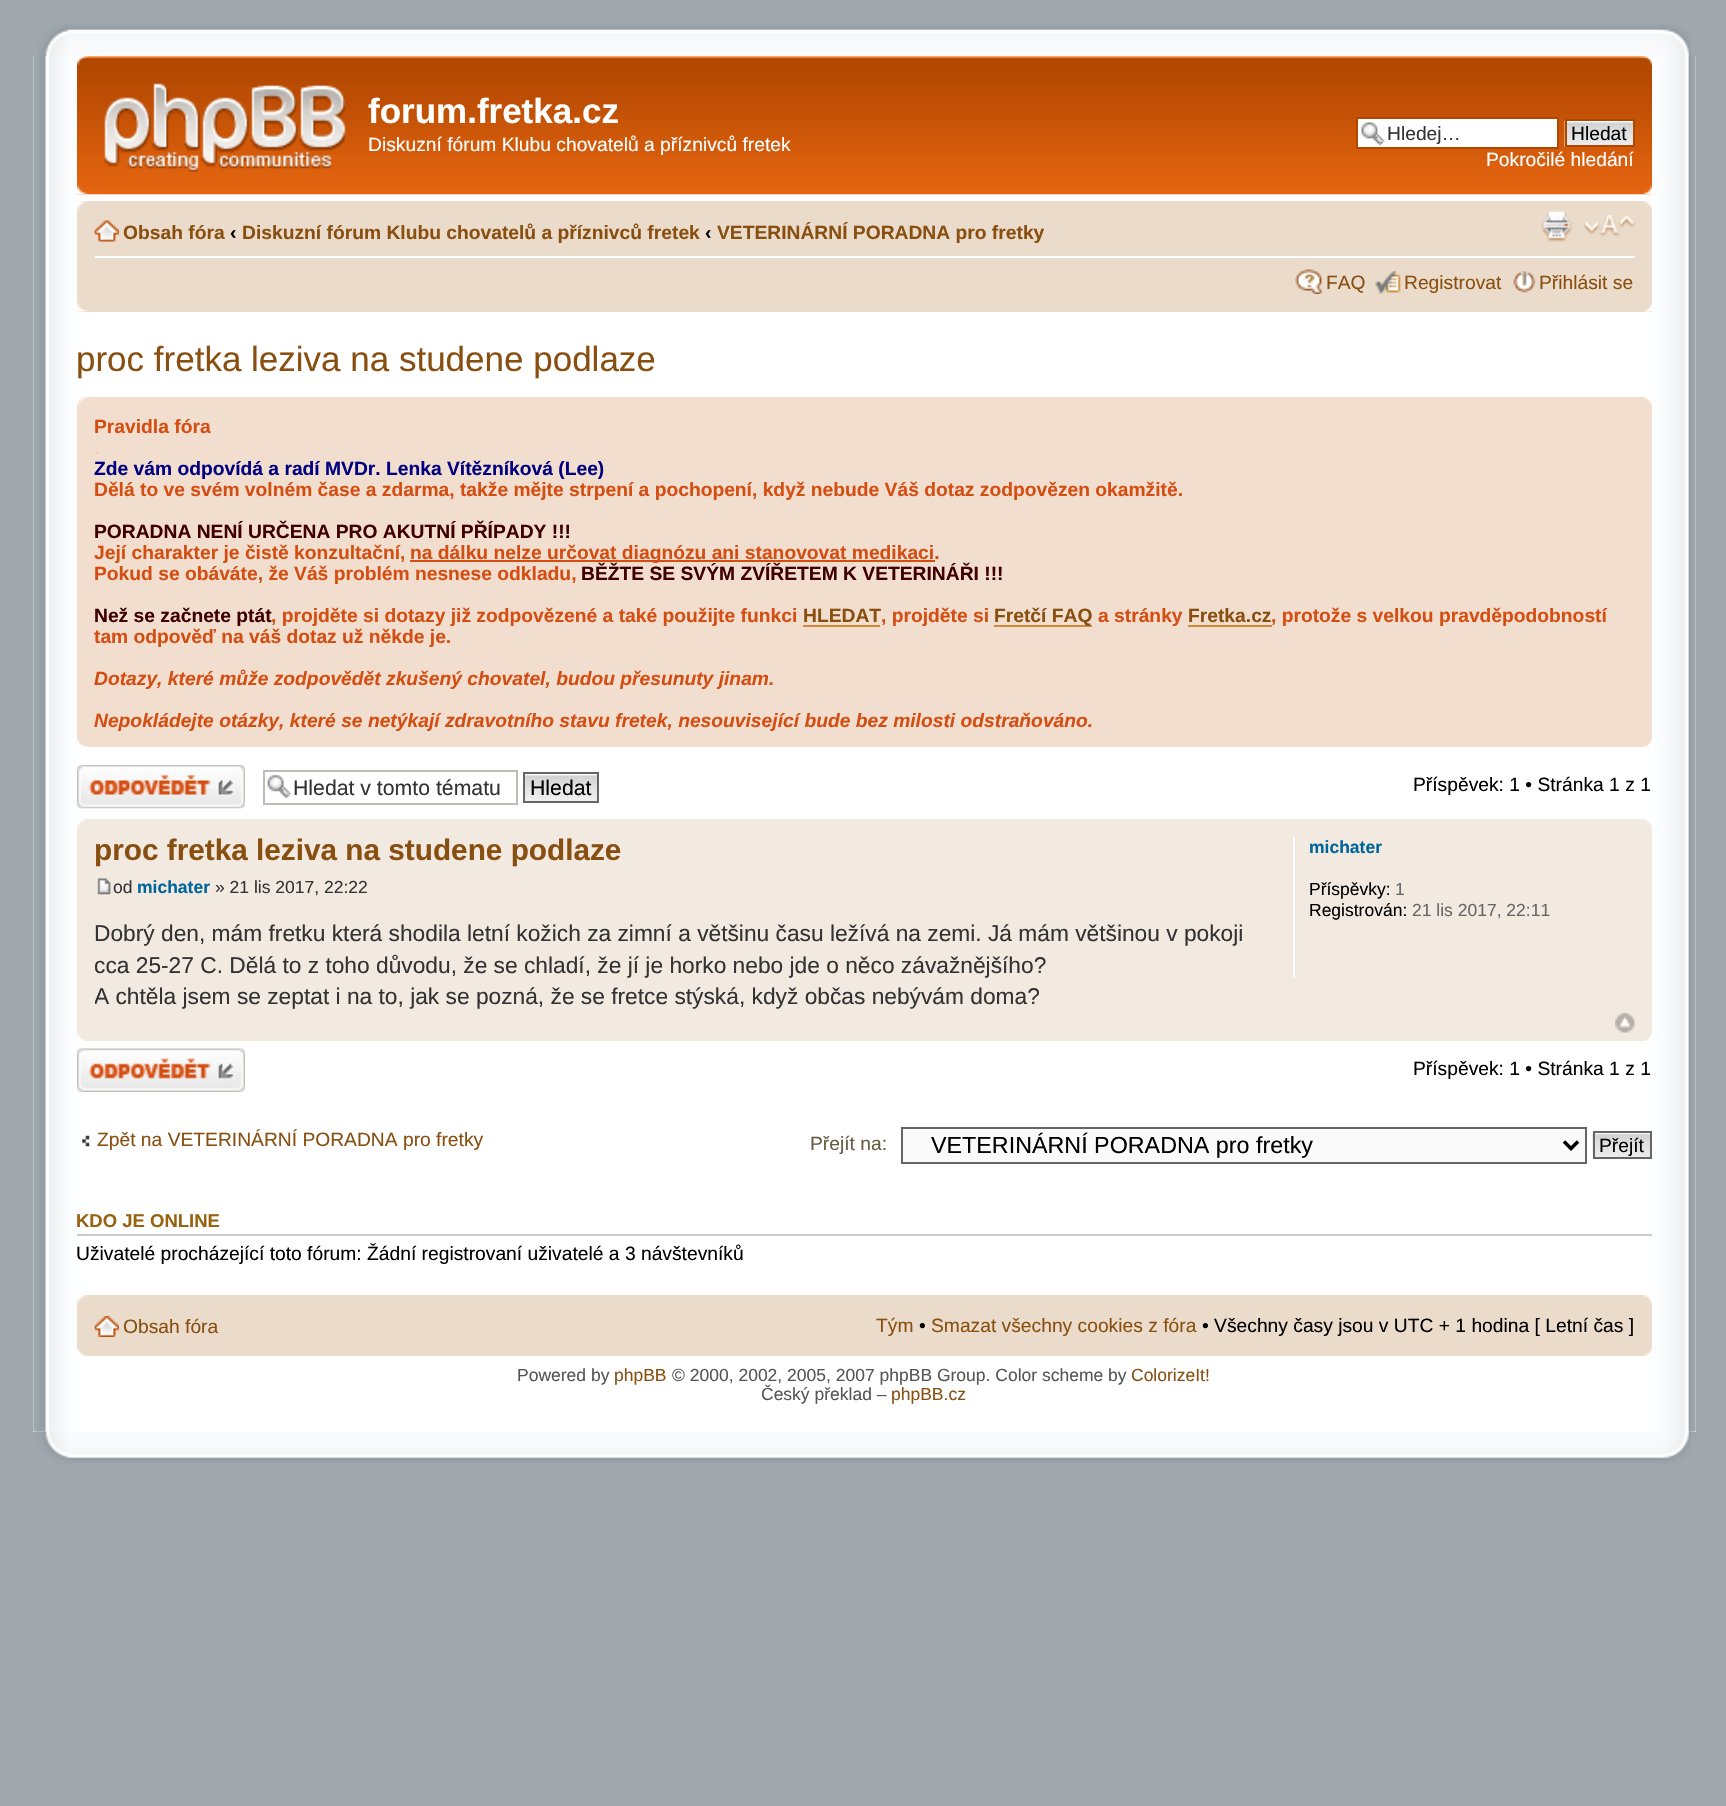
#include "include/core/SkBlurTypes.h"
#include "include/core/SkCanvas.h"
#include "include/core/SkData.h"
#include "include/core/SkFont.h"
#include "include/core/SkFontMgr.h"
#include "include/core/SkImage.h"
#include "include/core/SkMaskFilter.h"
#include "include/core/SkPaint.h"
#include "include/core/SkPathBuilder.h"
#include "include/core/SkTextBlob.h"
#include "include/effects/SkDashPathEffect.h"
#include "include/effects/SkGradientShader.h"
#include "include/utils/SkParsePath.h"

extern sk_sp<SkFontMgr> fontMgr;

void draw(SkCanvas* canvas) {
    SkPaint p;
    p.setAntiAlias(true);
    auto font = [&](const char* family, int weight, float size, bool italic = false) {
        SkFontStyle style(weight, SkFontStyle::kNormal_Width,
            italic ? SkFontStyle::kItalic_Slant : SkFontStyle::kUpright_Slant);
        SkFont result(fontMgr->matchFamilyStyle(family, style), size);
        result.setSubpixel(true);
        return result;
    };
    auto drawPhoto = [&](const char* path, float l, float t, float r, float b) {
        auto image = SkImages::DeferredFromEncodedData(SkData::MakeFromFileName(path));
        canvas->drawImageRect(image, SkRect::MakeLTRB(l, t, r, b), SkSamplingOptions());
    };
    canvas->clear(0xFFA0A8AE);
    drawPhoto("media/1.png", 38, 24, 69, 56);
    drawPhoto("media/2.png", 68, 24, 1659, 56);
    drawPhoto("media/3.png", 1659, 24, 1691, 56);
    p.setColor(0xFFFFFFFF);
    canvas->drawRect(SkRect::MakeLTRB(33, 56, 1696, 1432), p);
    drawPhoto("media/4.png", 33, 56, 1696, 1432);
    drawPhoto("media/5.png", 77, 56, 1652, 195);
    drawPhoto("media/6.png", 77, 56, 88, 65);
    drawPhoto("media/7.png", 1642, 56, 1652, 65);
    drawPhoto("media/8.png", 104, 83, 346, 172);
    auto font1 = font("Liberation Sans", 700, 35);
    canvas->drawString("forum.fretka.cz", 368, 123, font1, p);
    auto font2 = font("Liberation Sans", 400, 19.25f);
    canvas->drawString("Diskuzní fórum Klubu chovatelů a příznivců fretek", 368, 151, font2, p);
    canvas->drawRect(SkRect::MakeLTRB(1358, 119, 1557, 147), p);
    drawPhoto("media/9.png", 1361, 122, 1385, 146);
    p.setStyle(SkPaint::kStroke_Style);
    p.setStrokeWidth(2);
    p.setColor(0xFFB04700);
    canvas->drawRect(SkRect::MakeLTRB(1357, 118, 1558, 148), p);
    p.setStyle(SkPaint::kFill_Style);
    p.setColor(0xFF333333);
    canvas->drawString("Hledej…", 1387, 140, font2, p);
    drawPhoto("media/10.png", 1564, 120, 1633, 147);
    p.setStyle(SkPaint::kStroke_Style);
    p.setColor(0xFFB04700);
    canvas->drawRect(SkRect::MakeLTRB(1566, 120, 1634, 146), p);
    p.setStyle(SkPaint::kFill_Style);
    p.setColor(0xFF000000);
    canvas->drawString("Hledat", 1571, 140, font2, p);
    p.setColor(0xFFFFFFFF);
    canvas->drawString("Pokročilé hledání", 1486, 166, font2, p);
    drawPhoto("media/11.png", 77, 185, 88, 195);
    drawPhoto("media/12.png", 1643, 185, 1652, 195);
    p.setColor(0xFFEBDBCA);
    canvas->drawRect(SkRect::MakeLTRB(77, 201, 1652, 312), p);
    drawPhoto("media/13.png", 77, 201, 88, 210);
    drawPhoto("media/14.png", 1643, 201, 1652, 210);
    p.setColor(0xFFFFFFFF);
    canvas->drawRect(SkRect::MakeLTRB(95, 256, 1635, 258), p);
    drawPhoto("media/15.png", 94, 220, 119, 242);
    auto font3 = font("Liberation Sans", 700, 19.25f);
    p.setColor(0xFF894F10);
    canvas->drawString("Obsah fóra", 123, 239, font3, p);
    p.setColor(0xFF000000);
    canvas->drawString("‹", 230, 239, font3, p);
    p.setColor(0xFF894F10);
    canvas->drawString("Diskuzní fórum Klubu chovatelů a příznivců fretek", 242, 239, font3, p);
    p.setColor(0xFF000000);
    canvas->drawString("‹", 705, 239, font3, p);
    p.setColor(0xFF894F10);
    canvas->drawString("VETERINÁRNÍ PORADNA pro fretky", 717, 239, font3, p);
    drawPhoto("media/16.png", 1541, 211, 1572, 242);
    drawPhoto("media/17.png", 1583, 215, 1635, 237);
    drawPhoto("media/18.png", 1295, 269, 1323, 294);
    canvas->drawString("FAQ", 1326, 289, font2, p);
    drawPhoto("media/19.png", 1375, 270, 1401, 294);
    canvas->drawString("Registrovat", 1404, 289, font2, p);
    drawPhoto("media/20.png", 1513, 271, 1536, 293);
    canvas->drawString("Přihlásit se", 1539, 289, font2, p);
    drawPhoto("media/21.png", 77, 303, 88, 312);
    drawPhoto("media/22.png", 1643, 303, 1652, 312);
    auto font4 = font("Liberation Sans", 400, 35);
    canvas->drawString("proc fretka leziva na studene podlaze", 76, 371, font4, p);
    p.setColor(0xFFF2DECF);
    canvas->drawRect(SkRect::MakeLTRB(77, 397, 1652, 747), p);
    drawPhoto("media/23.png", 77, 397, 87, 406);
    drawPhoto("media/24.png", 1643, 397, 1652, 406);
    p.setColor(0xFFD44E12);
    canvas->drawString("Pravidla fóra", 94, 433, font3, p);
    p.setColor(0xFFFFBFBF);
    canvas->drawString(".", 94, 454, font2, p);
    p.setColor(0xFF000080);
    canvas->drawString("Zde vám odpovídá a radí MVDr. Lenka Vítězníková (Lee)", 94, 475, font3, p);
    p.setColor(0xFFD44E12);
    canvas->drawString("Dělá to ve svém volném čase a zdarma, takže mějte strpení a pochopení, když nebude Váš dotaz zodpovězen okamžitě.", 94, 496, font3, p);
    p.setColor(0xFF400000);
    canvas->drawString("PORADNA NENÍ URČENA PRO AKUTNÍ PŘÍPADY !!!", 94, 538, font3, p);
    p.setColor(0xFFD44E12);
    canvas->drawString("Její charakter je čistě konzultační,", 94, 559, font3, p);
    canvas->drawRect(SkRect::MakeLTRB(410, 560, 935, 562), p);
    canvas->drawString("na dálku nelze určovat diagnózu ani stanovovat medikaci.", 410, 559, font3, p);
    canvas->drawString("Pokud se obáváte, že Váš problém nesnese odkladu,", 94, 580, font3, p);
    p.setColor(0xFF400000);
    canvas->drawString("BĚŽTE SE SVÝM ZVÍŘETEM K VETERINÁŘI !!!", 581, 580, font3, p);
    canvas->drawString("Než se začnete ptát", 94, 622, font3, p);
    p.setColor(0xFFD44E12);
    canvas->drawString(", projděte si dotazy již zodpovězené a také použijte funkci", 271, 622, font3, p);
    p.setColor(0xFF894F10);
    canvas->drawString("HLEDAT", 803, 622, font3, p);
    p.setColor(0xFFD44E12);
    canvas->drawString(", projděte si", 881, 622, font3, p);
    p.setColor(0xFFD28836);
    canvas->drawRect(SkRect::MakeLTRB(803, 625, 880, 627), p);
    canvas->drawRect(SkRect::MakeLTRB(994, 625, 1092, 627), p);
    p.setColor(0xFF894F10);
    canvas->drawString("Fretčí FAQ", 994, 622, font3, p);
    p.setColor(0xFFD44E12);
    canvas->drawString("a stránky", 1098, 622, font3, p);
    p.setColor(0xFF894F10);
    canvas->drawString("Fretka.cz", 1188, 622, font3, p);
    p.setColor(0xFFD44E12);
    canvas->drawString(", protože s velkou pravděpodobností", 1271, 622, font3, p);
    p.setColor(0xFFD28836);
    canvas->drawRect(SkRect::MakeLTRB(1188, 625, 1272, 627), p);
    p.setColor(0xFFD44E12);
    canvas->drawString("tam odpověď na váš dotaz už někde je.", 94, 643, font3, p);
    auto font5 = font("Liberation Sans", 700, 19.25f, true);
    canvas->drawString("Dotazy, které může zodpovědět zkušený chovatel, budou přesunuty jinam.", 94, 685, font5, p);
    canvas->drawString("Nepokládejte otázky, které se netýkají zdravotního stavu fretek, nesouvisející bude bez milosti odstraňováno.", 94, 727, font5, p);
    drawPhoto("media/25.png", 77, 738, 88, 747);
    drawPhoto("media/26.png", 1643, 738, 1652, 747);
    drawPhoto("media/27.png", 77, 764, 245, 809);
    drawPhoto("media/28.png", 267, 774, 291, 798);
    p.setStyle(SkPaint::kStroke_Style);
    p.setColor(0xFFC0BBB4);
    canvas->drawRect(SkRect::MakeLTRB(264, 771, 517, 804), p);
    auto font6 = font("Liberation Sans", 400, 21.25f);
    p.setStyle(SkPaint::kFill_Style);
    p.setColor(0xFF333333);
    canvas->drawString("Hledat v tomto tématu", 293, 795, font6, p);
    p.setColor(0xFFFAFAFA);
    canvas->drawRect(SkRect::MakeLTRB(525, 774, 597, 775), p);
    drawPhoto("media/29.png", 523, 775, 599, 804);
    p.setStyle(SkPaint::kStroke_Style);
    p.setColor(0xFF666666);
    canvas->drawRect(SkRect::MakeLTRB(524, 773, 598, 802), p);
    p.setStyle(SkPaint::kFill_Style);
    p.setColor(0xFF000000);
    canvas->drawString("Hledat", 530, 795, font6, p);
    canvas->drawString("Příspěvek: 1 • Stránka 1 z 1", 1413, 791, font2, p);
    p.setColor(0xFFF2E9E1);
    canvas->drawRect(SkRect::MakeLTRB(77, 819, 1652, 1041), p);
    drawPhoto("media/30.png", 77, 819, 87, 828);
    drawPhoto("media/31.png", 1643, 819, 1652, 828);
    auto font7 = font("Liberation Sans", 700, 29.75f);
    p.setColor(0xFF894F10);
    canvas->drawString("proc fretka leziva na studene podlaze", 94, 860, font7, p);
    drawPhoto("media/32.png", 97, 878, 111, 895);
    auto font8 = font("Liberation Sans", 400, 17.5f);
    p.setColor(0xFF333333);
    canvas->drawString("od", 113, 893, font8, p);
    auto font9 = font("Liberation Sans", 700, 17.5f);
    p.setColor(0xFF006699);
    canvas->drawString("michater", 137, 893, font9, p);
    p.setColor(0xFF333333);
    canvas->drawString("» 21 lis 2017, 22:22", 215, 893, font8, p);
    auto font10 = font("Liberation Sans", 400, 22.75f);
    canvas->drawString("Dobrý den, mám fretku která shodila letní kožich za zimní a většinu času ležívá na zemi. Já mám většinou v pokoji", 94, 941, font10, p);
    canvas->save();
    canvas->clipRect(SkRect::MakeLTRB(95, 919, 1264, 1013));
    canvas->drawString("cca 25-27 C. Dělá to z toho důvodu, že se chladí, že jí je horko nebo jde o něco závažnějšího?", 94, 973, font10, p);
    canvas->drawString("A chtěla jsem se zeptat i na to, jak se pozná, že se fretce stýská, když občas nebývám doma?", 94, 1004, font10, p);
    canvas->restore();
    p.setColor(0xFFFFFFFF);
    canvas->drawRect(SkRect::MakeLTRB(1293, 837, 1295, 977), p);
    p.setColor(0xFF006699);
    canvas->drawString("michater", 1309, 853, font9, p);
    p.setColor(0xFF000000);
    canvas->drawString("Příspěvky:", 1309, 895, font8, p);
    p.setColor(0xFF666666);
    canvas->drawString("1", 1395, 895, font8, p);
    p.setColor(0xFF000000);
    canvas->drawString("Registrován:", 1309, 916, font8, p);
    p.setColor(0xFF666666);
    canvas->drawString("21 lis 2017, 22:11", 1412, 916, font8, p);
    drawPhoto("media/33.png", 1615, 1013, 1635, 1033);
    drawPhoto("media/34.png", 77, 1033, 87, 1041);
    drawPhoto("media/35.png", 1643, 1033, 1652, 1041);
    drawPhoto("media/36.png", 77, 1048, 245, 1092);
    p.setColor(0xFF000000);
    canvas->drawString("Příspěvek: 1 • Stránka 1 z 1", 1413, 1075, font2, p);
    drawPhoto("media/37.png", 82, 1135, 90, 1147);
    p.setColor(0xFF894F10);
    canvas->drawString("Zpět na VETERINÁRNÍ PORADNA pro fretky", 97, 1146, font2, p);
    p.setColor(0xFF675B42);
    canvas->drawString("Přejít na:", 810, 1150, font2, p);
    p.setColor(0xFFFAFAFA);
    canvas->drawRect(SkRect::MakeLTRB(902, 1128, 1586, 1163), p);
    p.setStyle(SkPaint::kStroke_Style);
    p.setColor(0xFF666666);
    canvas->drawRect(SkRect::MakeLTRB(902, 1128, 1586, 1163), p);
    p.setStrokeWidth(3.5f);
    p.setColor(0xFF000000);
    canvas->drawPath(SkPathBuilder().moveTo(1564, 1141.5f).lineTo(1571, 1148.5f).lineTo(1578, 1141.5f).detach(), p);
    auto font11 = font("Liberation Sans", 400, 23.3f);
    p.setStyle(SkPaint::kFill_Style);
    canvas->drawString("VETERINÁRNÍ PORADNA pro fretky", 931, 1153, font11, p);
    drawPhoto("media/38.png", 1592, 1133, 1650, 1159);
    p.setStyle(SkPaint::kStroke_Style);
    p.setStrokeWidth(2);
    p.setColor(0xFF666666);
    canvas->drawRect(SkRect::MakeLTRB(1594, 1132, 1651, 1158), p);
    p.setStyle(SkPaint::kFill_Style);
    p.setColor(0xFF000000);
    canvas->drawString("Přejít", 1599, 1152, font2, p);
    p.setColor(0xFFCCCCCC);
    canvas->drawRect(SkRect::MakeLTRB(77, 1234, 1652, 1236), p);
    auto font12 = font("Liberation Sans", 700, 18.5f);
    p.setColor(0xFF986211);
    canvas->drawString("KDO JE ONLINE", 76, 1227, font12, p);
    p.setColor(0xFF000000);
    canvas->drawString("Uživatelé procházející toto fórum: Žádní registrovaní uživatelé a 3 návštevníků", 76, 1260, font2, p);
    p.setColor(0xFFEBDBCA);
    canvas->drawRect(SkRect::MakeLTRB(77, 1295, 1652, 1356), p);
    drawPhoto("media/39.png", 77, 1295, 88, 1304);
    drawPhoto("media/40.png", 1643, 1295, 1652, 1304);
    drawPhoto("media/41.png", 94, 1316, 119, 1337);
    p.setColor(0xFF894F10);
    canvas->drawString("Obsah fóra", 123, 1333, font2, p);
    canvas->drawString("Tým", 876, 1332, font2, p);
    p.setColor(0xFF000000);
    canvas->drawString("•", 919, 1332, font2, p);
    p.setColor(0xFF894F10);
    canvas->drawString("Smazat všechny cookies z fóra", 931, 1332, font2, p);
    p.setColor(0xFF000000);
    canvas->drawString("• Všechny časy jsou v UTC + 1 hodina [ Letní čas ]", 1202, 1332, font2, p);
    drawPhoto("media/42.png", 77, 1347, 88, 1356);
    drawPhoto("media/43.png", 1643, 1347, 1652, 1356);
    p.setColor(0xFF555555);
    canvas->drawString("Powered by", 517, 1381, font8, p);
    p.setColor(0xFF894F10);
    canvas->drawString("phpBB", 614, 1381, font8, p);
    p.setColor(0xFF555555);
    canvas->drawString("© 2000, 2002, 2005, 2007 phpBB Group. Color scheme by", 672, 1381, font8, p);
    p.setColor(0xFF894F10);
    canvas->drawString("ColorizeIt!", 1131, 1381, font8, p);
    p.setColor(0xFF555555);
    canvas->drawString("Český překlad –", 761, 1400, font8, p);
    p.setColor(0xFF894F10);
    canvas->drawString("phpBB.cz", 891, 1400, font8, p);
    drawPhoto("media/44.png", 35, 1431, 72, 1464);
    drawPhoto("media/45.png", 68, 1432, 1659, 1463);
    drawPhoto("media/46.png", 1659, 1431, 1694, 1464);
}
